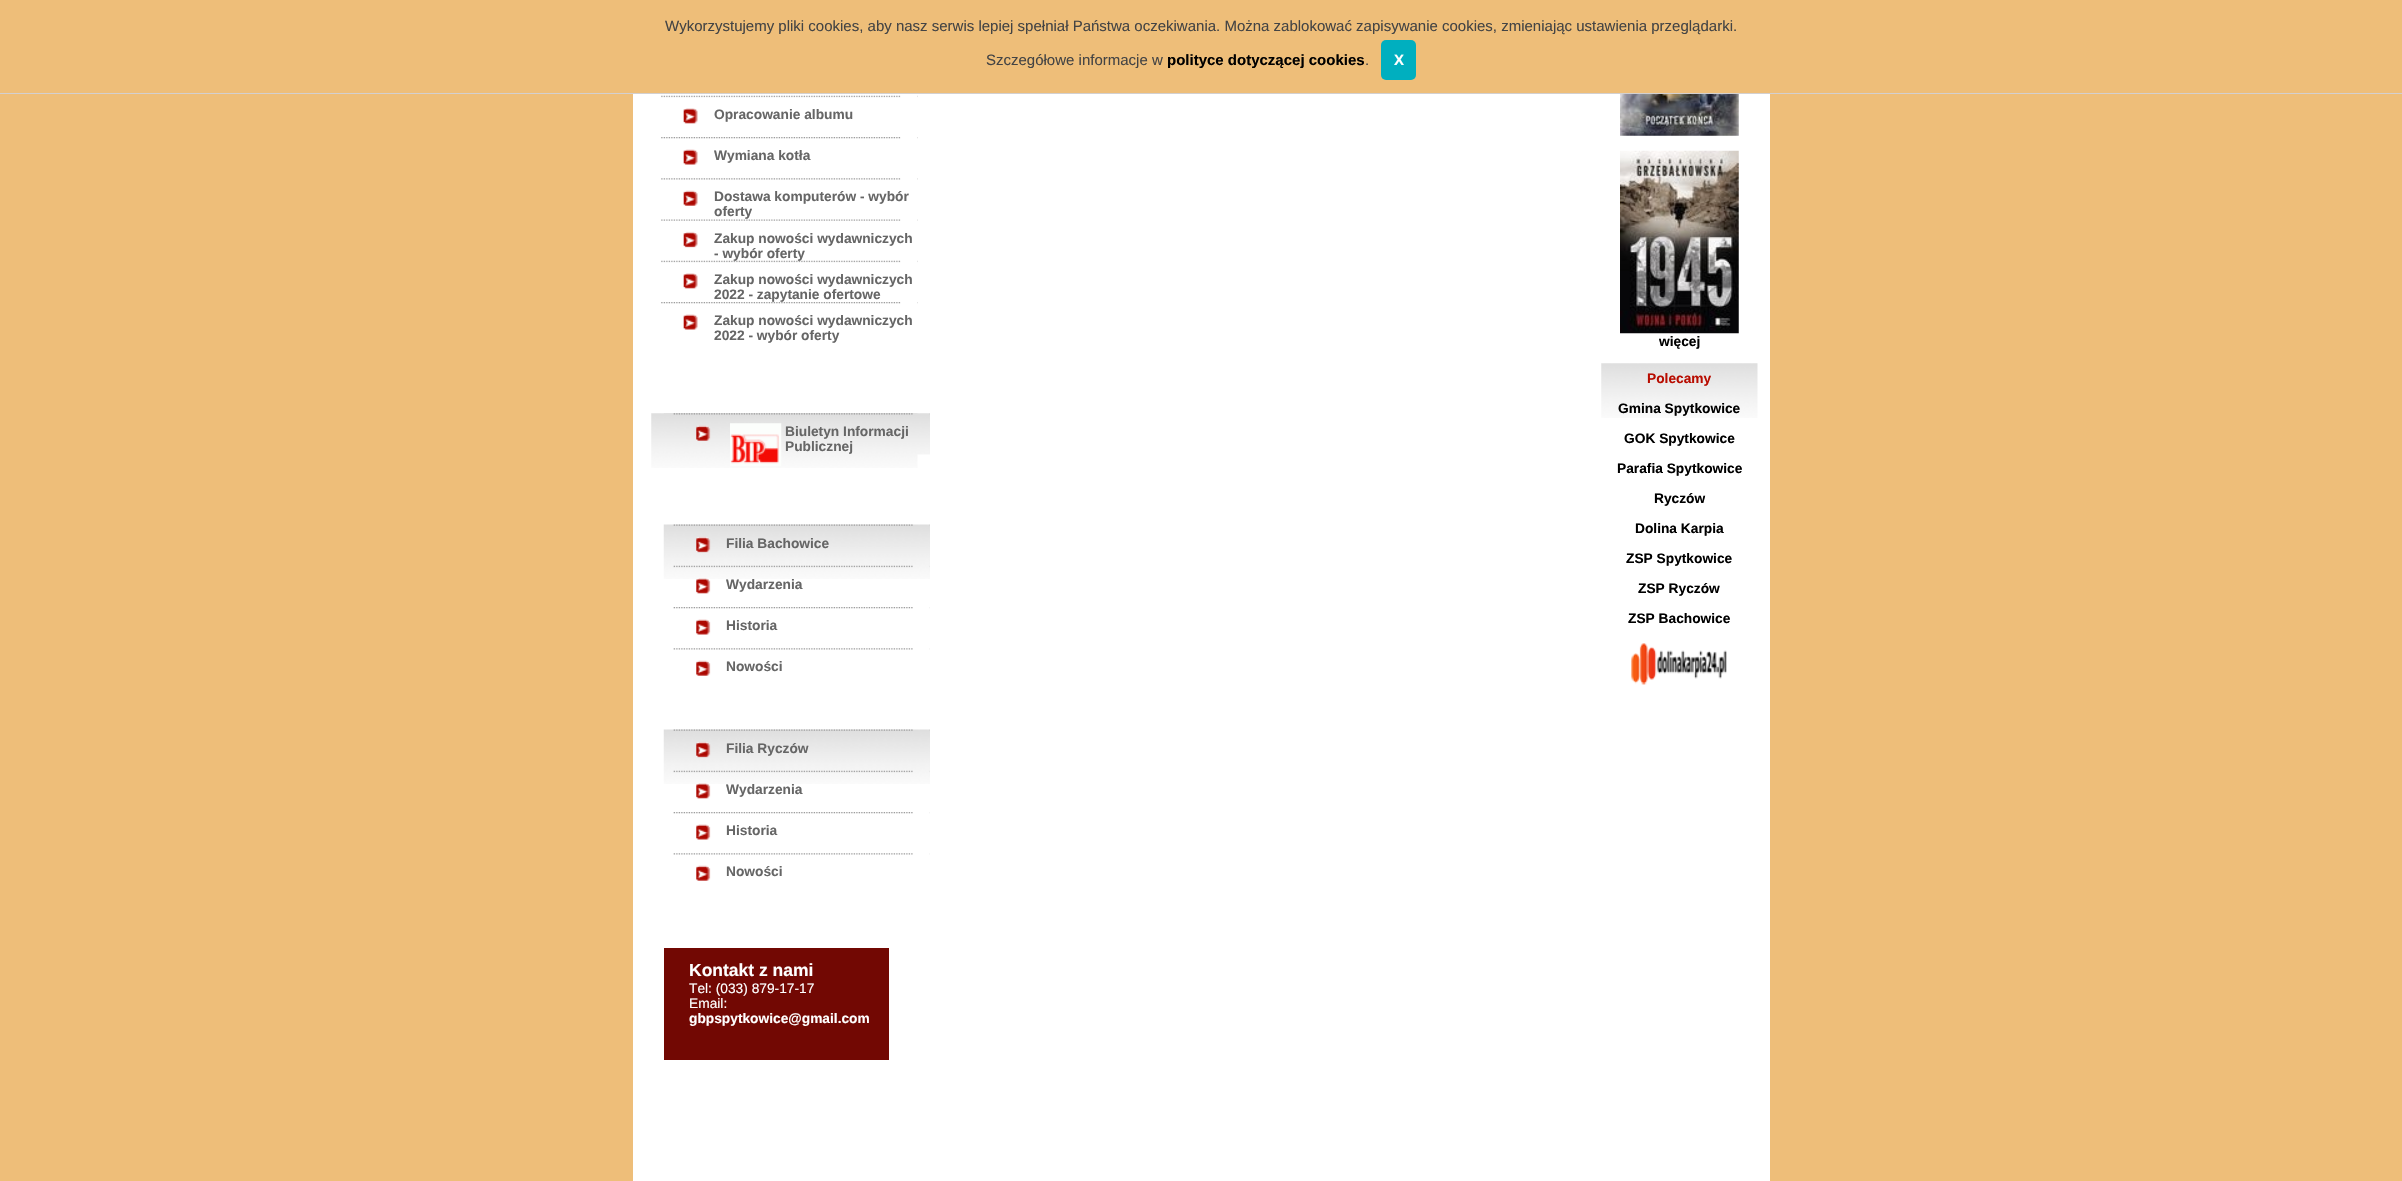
#include "include/core/SkBlurTypes.h"
#include "include/core/SkCanvas.h"
#include "include/core/SkData.h"
#include "include/core/SkFont.h"
#include "include/core/SkFontMgr.h"
#include "include/core/SkImage.h"
#include "include/core/SkMaskFilter.h"
#include "include/core/SkPaint.h"
#include "include/core/SkPathBuilder.h"
#include "include/core/SkTextBlob.h"
#include "include/effects/SkDashPathEffect.h"
#include "include/effects/SkGradientShader.h"
#include "include/utils/SkParsePath.h"

extern sk_sp<SkFontMgr> fontMgr;

void draw(SkCanvas* canvas) {
    SkPaint p;
    p.setAntiAlias(true);
    auto font = [&](const char* family, int weight, float size, bool italic = false) {
        SkFontStyle style(weight, SkFontStyle::kNormal_Width,
            italic ? SkFontStyle::kItalic_Slant : SkFontStyle::kUpright_Slant);
        SkFont result(fontMgr->matchFamilyStyle(family, style), size);
        result.setSubpixel(true);
        return result;
    };
    auto drawPhoto = [&](const char* path, float l, float t, float r, float b) {
        auto image = SkImages::DeferredFromEncodedData(SkData::MakeFromFileName(path));
        canvas->drawImageRect(image, SkRect::MakeLTRB(l, t, r, b), SkSamplingOptions());
    };
    canvas->clear(0xFFEEBE79);
    p.setColor(0xFFD3D0D0);
    canvas->drawRect(SkRect::MakeLTRB(0, 93, 2402, 94), p);
    auto font1 = font("Liberation Sans", 400, 15);
    p.setColor(0xFF444444);
    canvas->drawString("Wykorzystujemy pliki cookies, aby nasz serwis lepiej spełniał Państwa oczekiwania. Można zablokować zapisywanie cookies, zmieniając ustawienia przeglądarki.", 665, 31, font1, p);
    canvas->drawString("Szczegółowe informacje w", 986, 65, font1, p);
    auto font2 = font("Liberation Sans", 700, 15);
    p.setColor(0xFF000000);
    canvas->drawString("polityce dotyczącej cookies", 1167, 65, font2, p);
    p.setColor(0xFF444444);
    canvas->drawString(".", 1365, 65, font1, p);
    p.setColor(0xFF00AFBF);
    canvas->drawRoundRect(SkRect::MakeLTRB(1381, 40, 1416, 80), 5, 5, p);
    p.setColor(0xFFFFFFFF);
    canvas->drawString("X", 1394, 65, font2, p);
    canvas->drawRect(SkRect::MakeLTRB(633, 94, 1770, 1181), p);
    drawPhoto("media/1.png", 661, 95, 918, 124);
    auto font3 = font("Liberation Sans", 700, 13.75f);
    p.setColor(0xFF666666);
    canvas->drawString("Opracowanie albumu", 714, 119, font3, p);
    drawPhoto("media/2.png", 661, 137, 918, 165);
    canvas->drawString("Wymiana kotła", 714, 160, font3, p);
    drawPhoto("media/3.png", 661, 178, 918, 206);
    canvas->drawString("Dostawa komputerów - wybór", 714, 201, font3, p);
    canvas->drawString("oferty", 714, 216, font3, p);
    drawPhoto("media/4.png", 661, 219, 918, 248);
    canvas->drawString("Zakup nowości wydawniczych", 714, 243, font3, p);
    drawPhoto("media/5.png", 661, 260, 918, 289);
    {
        const struct { const char* s; float x, y; } items[] = {
            {"- wybór oferty", 714, 258},
            {"Zakup nowości wydawniczych", 714, 284},
            {"2022 - zapytanie ofertowe", 714, 299},
        };
        for (auto [s, x, y] : items) {
            canvas->drawString(s, x, y, font3, p);
        }
    }
    drawPhoto("media/6.png", 661, 302, 918, 330);
    canvas->drawString("Zakup nowości wydawniczych", 714, 325, font3, p);
    canvas->drawString("2022 - wybór oferty", 714, 340, font3, p);
    drawPhoto("media/7.png", 651, 413, 918, 468);
    drawPhoto("media/8.png", 664, 413, 930, 455);
    drawPhoto("media/9.png", 673, 413, 930, 441);
    drawPhoto("media/10.png", 730, 423, 782, 466);
    canvas->drawString("Biuletyn Informacji", 785, 436, font3, p);
    canvas->drawString("Publicznej", 785, 451, font3, p);
    drawPhoto("media/11.png", 663, 524, 930, 579);
    drawPhoto("media/12.png", 673, 524, 930, 553);
    canvas->drawString("Filia Bachowice", 726, 548, font3, p);
    drawPhoto("media/13.png", 673, 565, 930, 594);
    canvas->drawString("Wydarzenia", 726, 589, font3, p);
    drawPhoto("media/14.png", 673, 607, 930, 635);
    canvas->drawString("Historia", 726, 630, font3, p);
    drawPhoto("media/15.png", 673, 648, 930, 676);
    canvas->drawString("Nowości", 726, 671, font3, p);
    drawPhoto("media/11.png", 663, 729, 930, 784);
    drawPhoto("media/16.png", 673, 729, 930, 758);
    canvas->drawString("Filia Ryczów", 726, 753, font3, p);
    drawPhoto("media/13.png", 673, 770, 930, 799);
    canvas->drawString("Wydarzenia", 726, 794, font3, p);
    drawPhoto("media/17.png", 673, 812, 930, 840);
    canvas->drawString("Historia", 726, 835, font3, p);
    drawPhoto("media/18.png", 673, 853, 930, 881);
    canvas->drawString("Nowości", 726, 876, font3, p);
    p.setColor(0xFF720803);
    canvas->drawRect(SkRect::MakeLTRB(664, 948, 889, 1060), p);
    auto font4 = font("Liberation Sans", 700, 17.5f);
    p.setColor(0xFFFFFFFF);
    canvas->drawString("Kontakt z nami", 689, 976, font4, p);
    auto font5 = font("Liberation Sans", 400, 13.75f);
    canvas->drawString("Tel: (033) 879-17-17", 689, 993, font5, p);
    canvas->drawString("Email:", 689, 1008, font5, p);
    canvas->drawString("gbpspytkowice@gmail.com", 689, 1023, font3, p);
    drawPhoto("media/19.png", 1620, 94, 1739, 136);
    drawPhoto("media/20.png", 1620, 150, 1739, 334);
    p.setColor(0xFF000000);
    canvas->drawString("więcej", 1659, 346, font3, p);
    drawPhoto("media/21.png", 1601, 363, 1758, 418);
    p.setColor(0xFFB80C00);
    canvas->drawString("Polecamy", 1647, 383, font3, p);
    p.setColor(0xFF000000);
    {
        const struct { const char* s; float x, y; } items[] = {
            {"Gmina Spytkowice", 1618, 413},
            {"GOK Spytkowice", 1624, 443},
            {"Parafia Spytkowice", 1617, 473},
            {"Ryczów", 1654, 503},
            {"Dolina Karpia", 1635, 533},
            {"ZSP Spytkowice", 1626, 563},
            {"ZSP Ryczów", 1638, 593},
            {"ZSP Bachowice", 1628, 623},
        };
        for (auto [s, x, y] : items) {
            canvas->drawString(s, x, y, font3, p);
        }
    }
    drawPhoto("media/22.png", 1631, 643, 1727, 685);
}
